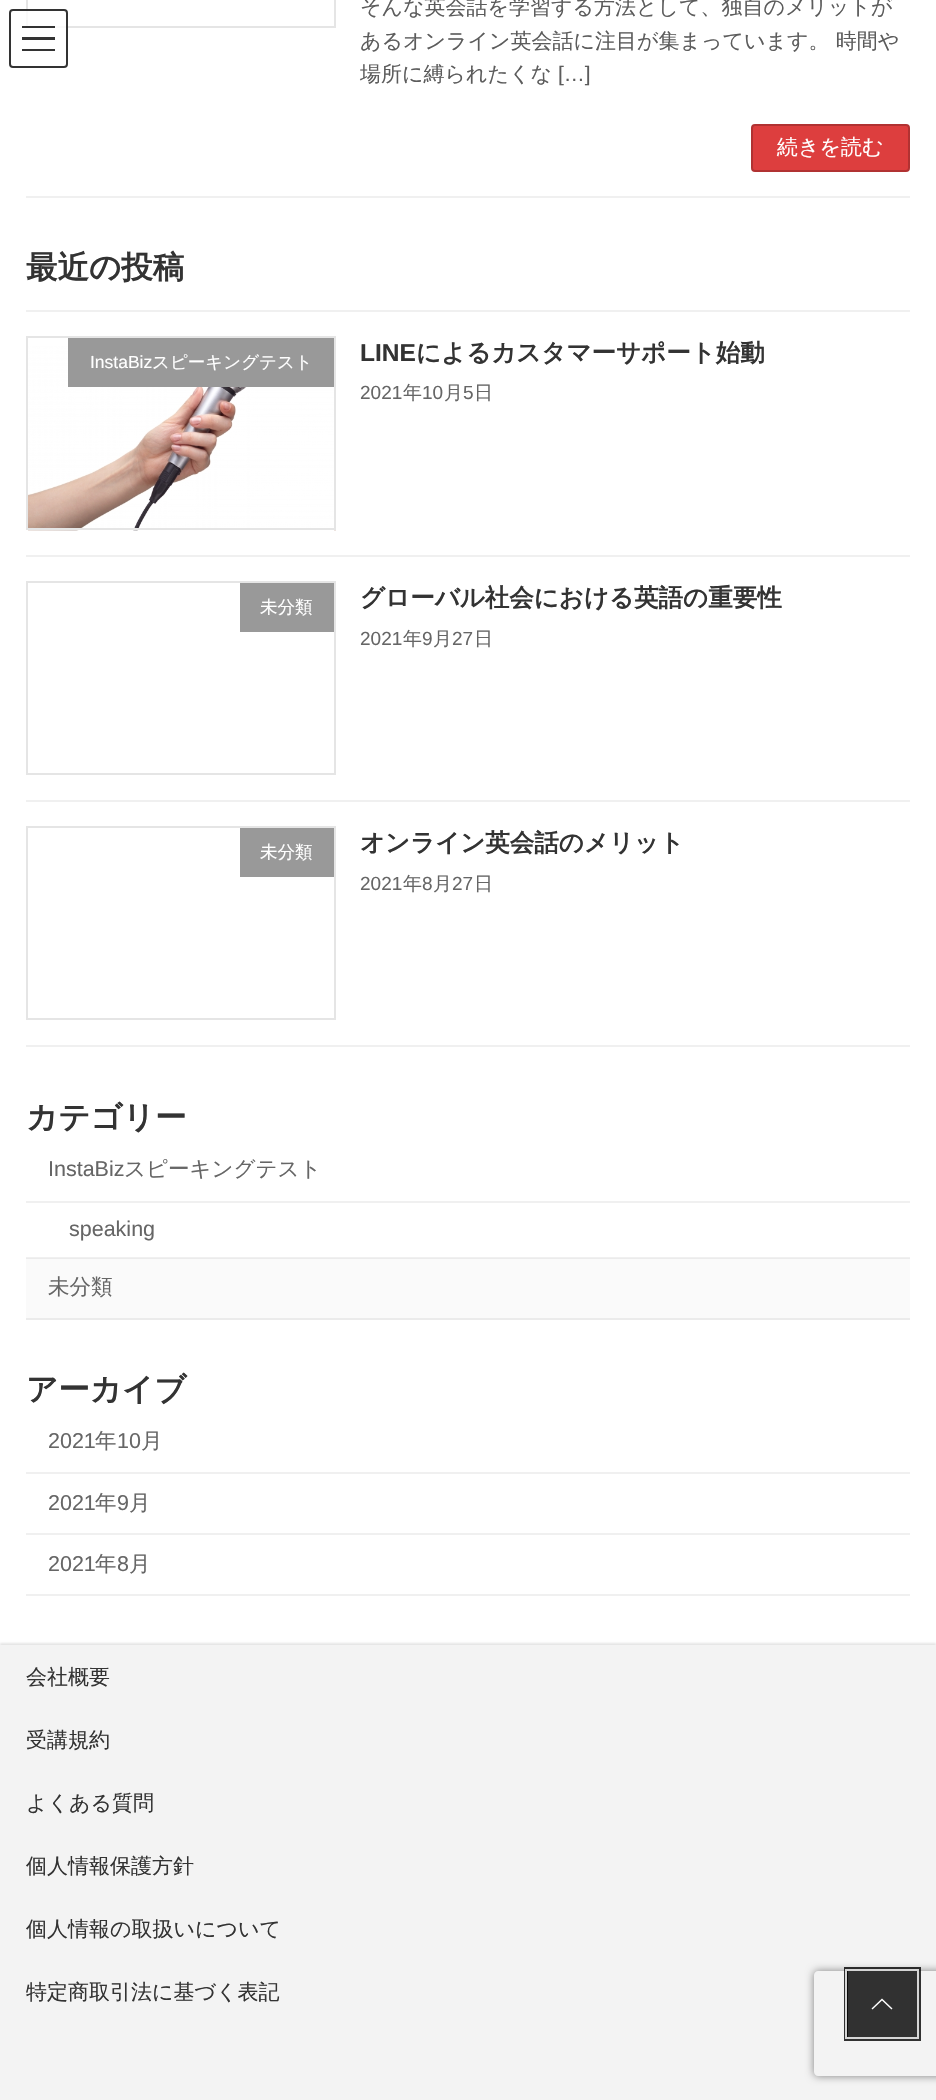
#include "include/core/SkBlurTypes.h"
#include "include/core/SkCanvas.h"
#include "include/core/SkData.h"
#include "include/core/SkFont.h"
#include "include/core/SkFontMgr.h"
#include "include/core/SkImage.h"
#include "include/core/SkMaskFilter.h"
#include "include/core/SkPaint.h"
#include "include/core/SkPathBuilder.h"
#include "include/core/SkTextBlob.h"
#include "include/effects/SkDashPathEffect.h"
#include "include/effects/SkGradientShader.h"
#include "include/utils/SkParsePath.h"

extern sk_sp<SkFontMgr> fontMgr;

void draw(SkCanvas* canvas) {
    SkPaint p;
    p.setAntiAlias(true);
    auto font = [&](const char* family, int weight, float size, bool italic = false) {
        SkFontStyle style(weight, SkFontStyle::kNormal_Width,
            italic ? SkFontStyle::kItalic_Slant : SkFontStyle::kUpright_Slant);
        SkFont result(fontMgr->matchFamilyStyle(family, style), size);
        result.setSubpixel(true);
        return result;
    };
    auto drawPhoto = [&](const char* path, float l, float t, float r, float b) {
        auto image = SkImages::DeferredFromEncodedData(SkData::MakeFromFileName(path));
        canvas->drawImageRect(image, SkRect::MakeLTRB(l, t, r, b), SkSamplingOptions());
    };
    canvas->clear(0xFFFFFFFF);
    p.setColor(0xFFFAFAFA);
    canvas->drawRect(SkRect::MakeLTRB(26, 1259, 910, 1318), p);
    p.setColor(0xFFF0F0F0);
    canvas->drawRect(SkRect::MakeLTRB(26, 196, 910, 198), p);
    p.setStyle(SkPaint::kStroke_Style);
    p.setStrokeWidth(2);
    p.setColor(0xFFE5E5E5);
    canvas->drawRect(SkRect::MakeLTRB(27, -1, 335, 27), p);
    auto font1 = font("WenQuanYi Zen Hei", 500, 21);
    p.setStyle(SkPaint::kFill_Style);
    p.setColor(0xFF5C5C5C);
    {
        const struct { const char* s; float x, y; } items[] = {
            {"そんな英会話を学習する方法として、独自のメリットが", 360, 14},
            {"あるオンライン英会話に注目が集まっています。 時間や", 360, 48},
            {"場所に縛られたくな", 360, 81},
        };
        for (auto [s, x, y] : items) {
            canvas->drawString(s, x, y, font1, p);
        }
    }
    auto font2 = font("Liberation Sans", 400, 21);
    canvas->drawString("[…]", 558, 81, font2, p);
    p.setColor(0xFFDD3E3E);
    canvas->drawRoundRect(SkRect::MakeLTRB(752, 125, 909, 171), 3, 3, p);
    p.setStyle(SkPaint::kStroke_Style);
    p.setColor(0xFFB13232);
    canvas->drawRoundRect(SkRect::MakeLTRB(752, 125, 909, 171), 3, 3, p);
    p.setStyle(SkPaint::kFill_Style);
    p.setColor(0xFFFFFFFF);
    canvas->drawString("続きを読む", 777, 154, font1, p);
    auto font3 = font("WenQuanYi Zen Hei", 700, 31.5f);
    p.setColor(0xFF333333);
    canvas->drawString("最近の投稿", 26, 278, font3, p);
    p.setColor(0xFFF0F0F0);
    canvas->drawRect(SkRect::MakeLTRB(26, 310, 910, 312), p);
    canvas->drawRect(SkRect::MakeLTRB(26, 555, 910, 557), p);
    drawPhoto("media/1.png", 28, 346, 336, 531);
    p.setStyle(SkPaint::kStroke_Style);
    p.setColor(0xFFE5E5E5);
    canvas->drawRect(SkRect::MakeLTRB(27, 337, 335, 529), p);
    p.setStyle(SkPaint::kFill_Style);
    p.setColor(0xFF999999);
    canvas->drawRect(SkRect::MakeLTRB(68, 338, 334, 387), p);
    auto font4 = font("Liberation Sans", 400, 17.5f);
    p.setColor(0xFFFFFFFF);
    canvas->drawString("InstaBiz", 90, 368, font4, p);
    auto font5 = font("WenQuanYi Zen Hei", 500, 17.5f);
    canvas->drawString("スピーキングテスト", 152, 368, font5, p);
    auto font6 = font("Liberation Sans", 700, 24.5f);
    p.setColor(0xFF333333);
    canvas->drawString("LINE", 360, 361, font6, p);
    auto font7 = font("WenQuanYi Zen Hei", 700, 24.5f);
    canvas->drawString("によるカスタマーサポート始動", 416, 361, font7, p);
    auto font8 = font("Liberation Sans", 400, 19);
    p.setColor(0xFF666666);
    canvas->drawString("2021", 360, 399, font8, p);
    auto font9 = font("WenQuanYi Zen Hei", 500, 19);
    canvas->drawString("年", 403, 399, font9, p);
    canvas->drawString("10", 422, 399, font8, p);
    canvas->drawString("月", 444, 399, font9, p);
    canvas->drawString("5", 463, 399, font8, p);
    canvas->drawString("日", 474, 399, font9, p);
    p.setColor(0xFFF0F0F0);
    canvas->drawRect(SkRect::MakeLTRB(26, 800, 910, 802), p);
    p.setStyle(SkPaint::kStroke_Style);
    p.setColor(0xFFE5E5E5);
    canvas->drawRect(SkRect::MakeLTRB(27, 582, 335, 774), p);
    p.setStyle(SkPaint::kFill_Style);
    p.setColor(0xFF999999);
    canvas->drawRect(SkRect::MakeLTRB(240, 583, 334, 632), p);
    p.setColor(0xFFFFFFFF);
    canvas->drawString("未分類", 260, 613, font5, p);
    p.setColor(0xFF333333);
    canvas->drawString("グローバル社会における英語の重要性", 360, 606, font7, p);
    p.setColor(0xFF666666);
    canvas->drawString("2021", 360, 645, font8, p);
    canvas->drawString("年", 403, 645, font9, p);
    canvas->drawString("9", 422, 645, font8, p);
    canvas->drawString("月", 433, 645, font9, p);
    canvas->drawString("27", 452, 645, font8, p);
    canvas->drawString("日", 474, 645, font9, p);
    p.setColor(0xFFF0F0F0);
    canvas->drawRect(SkRect::MakeLTRB(26, 1045, 910, 1047), p);
    p.setStyle(SkPaint::kStroke_Style);
    p.setColor(0xFFE5E5E5);
    canvas->drawRect(SkRect::MakeLTRB(27, 827, 335, 1019), p);
    p.setStyle(SkPaint::kFill_Style);
    p.setColor(0xFF999999);
    canvas->drawRect(SkRect::MakeLTRB(240, 828, 334, 877), p);
    p.setColor(0xFFFFFFFF);
    canvas->drawString("未分類", 260, 858, font5, p);
    p.setColor(0xFF333333);
    canvas->drawString("オンライン英会話のメリット", 360, 851, font7, p);
    p.setColor(0xFF666666);
    canvas->drawString("2021", 360, 890, font8, p);
    canvas->drawString("年", 403, 890, font9, p);
    canvas->drawString("8", 422, 890, font8, p);
    canvas->drawString("月", 433, 890, font9, p);
    canvas->drawString("27", 452, 890, font8, p);
    canvas->drawString("日", 474, 890, font9, p);
    p.setColor(0xFF333333);
    canvas->drawString("カテゴリー", 26, 1128, font3, p);
    p.setColor(0xFFF0F0F0);
    canvas->drawRect(SkRect::MakeLTRB(26, 1201, 910, 1203), p);
    auto font10 = font("Liberation Sans", 400, 21.5f);
    p.setColor(0xFF666666);
    canvas->drawString("InstaBiz", 48, 1176, font10, p);
    auto font11 = font("WenQuanYi Zen Hei", 500, 21.5f);
    canvas->drawString("スピーキングテスト", 124, 1176, font11, p);
    p.setColor(0xFFF0F0F0);
    canvas->drawRect(SkRect::MakeLTRB(26, 1257, 910, 1258), p);
    p.setColor(0xFFEBEBEB);
    canvas->drawRect(SkRect::MakeLTRB(26, 1258, 910, 1259), p);
    p.setColor(0xFF666666);
    canvas->drawString("speaking", 69, 1236, font10, p);
    p.setColor(0xFFEBEBEB);
    canvas->drawRect(SkRect::MakeLTRB(26, 1318, 910, 1320), p);
    p.setColor(0xFF666666);
    canvas->drawString("未分類", 48, 1294, font11, p);
    p.setColor(0xFF333333);
    canvas->drawString("アーカイブ", 26, 1400, font3, p);
    p.setColor(0xFFF0F0F0);
    canvas->drawRect(SkRect::MakeLTRB(26, 1472, 910, 1474), p);
    p.setColor(0xFF666666);
    canvas->drawString("2021", 48, 1448, font10, p);
    canvas->drawString("年", 95, 1448, font11, p);
    canvas->drawString("10", 117, 1448, font10, p);
    canvas->drawString("月", 141, 1448, font11, p);
    p.setColor(0xFFF0F0F0);
    canvas->drawRect(SkRect::MakeLTRB(26, 1533, 910, 1535), p);
    p.setColor(0xFF666666);
    canvas->drawString("2021", 48, 1510, font10, p);
    canvas->drawString("年", 95, 1510, font11, p);
    canvas->drawString("9", 117, 1510, font10, p);
    canvas->drawString("月", 129, 1510, font11, p);
    p.setColor(0xFFF0F0F0);
    canvas->drawRect(SkRect::MakeLTRB(26, 1594, 910, 1596), p);
    p.setColor(0xFF666666);
    canvas->drawString("2021", 48, 1571, font10, p);
    canvas->drawString("年", 95, 1571, font11, p);
    canvas->drawString("8", 117, 1571, font10, p);
    canvas->drawString("月", 129, 1571, font11, p);
    p.setColor(0xCCFFFFFF);
    canvas->drawRoundRect(SkRect::MakeLTRB(9, 9, 68, 68), 4, 4, p);
    {
        const struct { float l, t, r, b; SkColor color; } items[] = {
            {22, 26, 55, 28, 0xCC000000},
            {22, 37, 55, 40, 0xFF333333},
            {22, 49, 55, 51, 0xFF333333},
        };
        for (auto [l, t, r, b, color] : items) {
            p.setColor(color);
            canvas->drawRect(SkRect::MakeLTRB(l, t, r, b), p);
        }
    }
    p.setStyle(SkPaint::kStroke_Style);
    canvas->drawRoundRect(SkRect::MakeLTRB(10, 10, 67, 67), 3, 3, p);
    p.setStyle(SkPaint::kFill_Style);
    p.setColor(0x1A000000);
    p.setMaskFilter(SkMaskFilter::MakeBlur(kNormal_SkBlurStyle, 1));
    canvas->drawRect(SkRect::MakeLTRB(0, 1643, 936, 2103), p);
    p.setMaskFilter(nullptr);
    p.setColor(0xFFF3F3F3);
    canvas->drawRect(SkRect::MakeLTRB(0, 1645, 936, 2100), p);
    p.setColor(0xFF333333);
    {
        const struct { const char* s; float x, y; } items[] = {
            {"会社概要", 26, 1684},
            {"受講規約", 26, 1747},
            {"よくある質問", 26, 1810},
            {"個人情報保護方針", 26, 1873},
            {"個人情報の取扱いについて", 26, 1936},
            {"特定商取引法に基づく表記", 26, 1999},
        };
        for (auto [s, x, y] : items) {
            canvas->drawString(s, x, y, font1, p);
        }
    }
    canvas->save();
    canvas->clipPath(SkPathBuilder(SkPathFillType::kEvenOdd).moveTo(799, 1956).lineTo(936, 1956).lineTo(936, 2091).lineTo(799, 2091).close().moveTo(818, 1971).lineTo(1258, 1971).cubicTo(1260, 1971, 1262, 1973, 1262, 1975).lineTo(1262, 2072).cubicTo(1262, 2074, 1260, 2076, 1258, 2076).lineTo(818, 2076).cubicTo(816, 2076, 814, 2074, 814, 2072).lineTo(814, 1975).cubicTo(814, 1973, 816, 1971, 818, 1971).close().detach(), true);
    p.setColor(0xFF808080);
    p.setMaskFilter(SkMaskFilter::MakeBlur(kNormal_SkBlurStyle, 4.5f));
    canvas->drawRoundRect(SkRect::MakeLTRB(814, 1971, 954, 2076), 4, 4, p);
    p.setMaskFilter(nullptr);
    canvas->restore();
    p.setStyle(SkPaint::kStroke_Style);
    p.setStrokeWidth(4);
    p.setColor(0xCC000000);
    canvas->drawRect(SkRect::MakeLTRB(846, 1969, 919, 2039), p);
    p.setStrokeWidth(2);
    p.setColor(0xCCFFFFFF);
    canvas->drawRect(SkRect::MakeLTRB(846, 1970, 918, 2038), p);
    p.setStyle(SkPaint::kFill_Style);
    p.setColor(0xCC000000);
    canvas->drawRect(SkRect::MakeLTRB(847, 1971, 917, 2037), p);
    p.setColor(0xFFFFFFFF);
    canvas->drawPath(SkPathBuilder().moveTo(892.5f, 2008.5f).lineTo(891.5f, 2009.5f).lineTo(882, 2000.5f).lineTo(872.5f, 2009.5f).lineTo(871.5f, 2008.5f).lineTo(882, 1998.5f).close().detach(), p);
}
